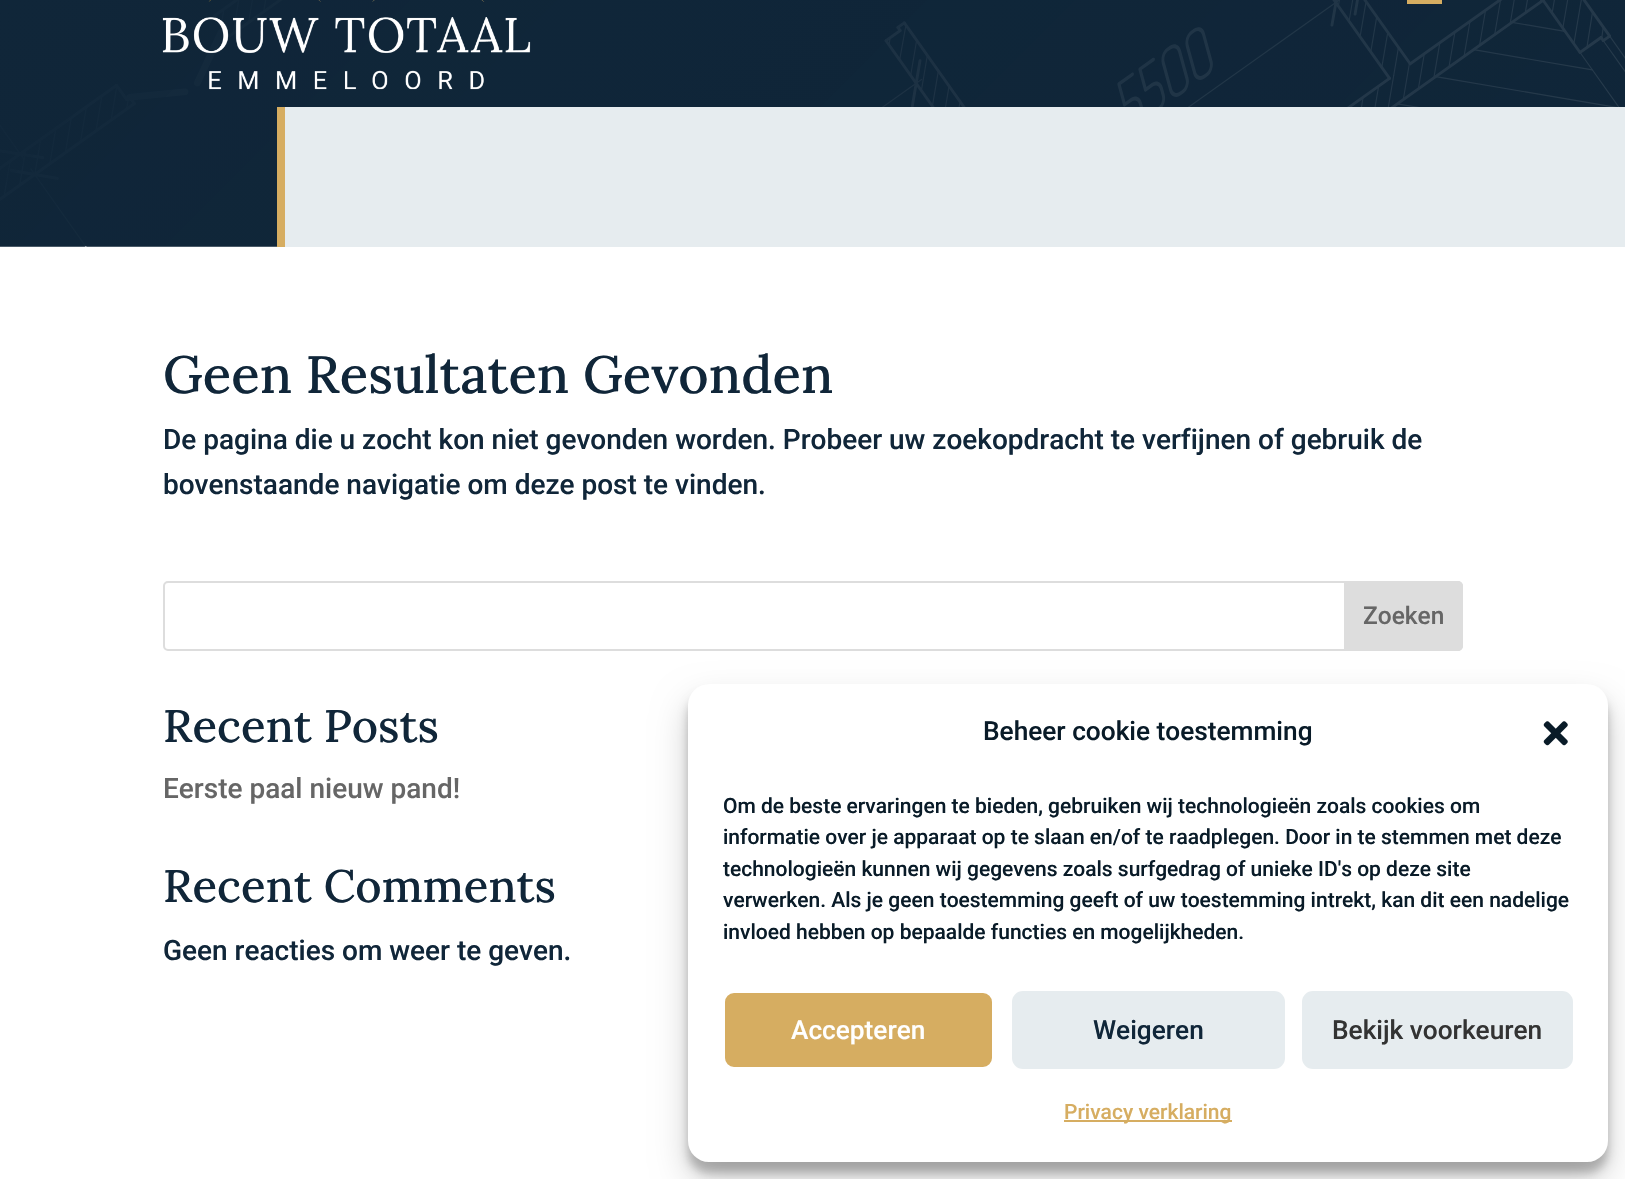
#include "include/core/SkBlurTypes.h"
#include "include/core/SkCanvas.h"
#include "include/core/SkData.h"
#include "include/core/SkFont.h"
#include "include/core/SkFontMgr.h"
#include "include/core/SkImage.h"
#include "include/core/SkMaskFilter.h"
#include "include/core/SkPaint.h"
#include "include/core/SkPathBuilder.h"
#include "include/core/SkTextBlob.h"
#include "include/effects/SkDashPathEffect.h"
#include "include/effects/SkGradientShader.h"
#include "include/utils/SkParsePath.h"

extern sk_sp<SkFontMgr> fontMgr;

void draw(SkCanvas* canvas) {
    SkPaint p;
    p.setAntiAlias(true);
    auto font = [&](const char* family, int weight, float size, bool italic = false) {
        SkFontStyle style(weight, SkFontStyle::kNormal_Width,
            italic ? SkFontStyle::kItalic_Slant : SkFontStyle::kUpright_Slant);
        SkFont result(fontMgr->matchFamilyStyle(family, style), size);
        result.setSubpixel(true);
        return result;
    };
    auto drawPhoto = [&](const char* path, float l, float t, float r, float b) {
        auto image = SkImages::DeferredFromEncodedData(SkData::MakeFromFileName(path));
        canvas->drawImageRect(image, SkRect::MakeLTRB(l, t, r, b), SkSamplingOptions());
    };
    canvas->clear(0xFFFFFFFF);
    drawPhoto("media/1.png", 0, 0, 1625, 247);
    drawPhoto("media/2.png", 162, 0, 531, 90);
    {
        const struct { float l, t, r, b; SkColor color; } items[] = {
            {1407, 0, 1442, 4, 0xFFD6AD61},
            {285, 107, 1625, 247, 0xFFE6ECEF},
            {277, 107, 285, 247, 0xFFD6AD61},
        };
        for (auto [l, t, r, b, color] : items) {
            p.setColor(color);
            canvas->drawRect(SkRect::MakeLTRB(l, t, r, b), p);
        }
    }
    auto font1 = font("Lora", 500, 52.5f);
    p.setColor(0xFF102639);
    canvas->drawString("Geen Resultaten Gevonden", 163, 393, font1, p);
    auto font2 = font("Roboto", 500, 28);
    canvas->drawString("De pagina die u zocht kon niet gevonden worden. Probeer uw zoekopdracht te verfijnen of gebruik de", 163, 449, font2, p);
    canvas->drawString("bovenstaande navigatie om deze post te vinden.", 163, 494, font2, p);
    p.setStyle(SkPaint::kStroke_Style);
    p.setStrokeWidth(2);
    p.setColor(0xFFDDDDDD);
    canvas->drawRoundRect(SkRect::MakeLTRB(164, 582, 1462, 650), 4, 4, p);
    p.setStyle(SkPaint::kFill_Style);
    canvas->drawPath(SkPathBuilder().moveTo(1345, 582).lineTo(1458, 582).cubicTo(1460, 582, 1462, 584, 1462, 586).lineTo(1462, 646).cubicTo(1462, 648, 1460, 650, 1458, 650).lineTo(1345, 650).close().detach(), p);
    p.setStyle(SkPaint::kStroke_Style);
    canvas->drawPath(SkPathBuilder().moveTo(1345, 582).lineTo(1458, 582).cubicTo(1460, 582, 1462, 584, 1462, 586).lineTo(1462, 646).cubicTo(1462, 648, 1460, 650, 1458, 650).lineTo(1345, 650).close().detach(), p);
    auto font3 = font("Roboto", 500, 24.5f);
    p.setStyle(SkPaint::kFill_Style);
    p.setColor(0xFF666666);
    canvas->drawString("Zoeken", 1363, 624, font3, p);
    auto font4 = font("Lora", 500, 45.5f);
    p.setColor(0xFF102639);
    canvas->drawString("Recent Posts", 163, 742, font4, p);
    p.setColor(0xFF666666);
    canvas->drawString("Eerste paal nieuw pand!", 163, 798, font2, p);
    p.setColor(0xFF102639);
    canvas->drawString("Recent Comments", 163, 902, font4, p);
    canvas->drawString("Geen reacties om weer te geven.", 163, 960, font2, p);
    p.setColor(0x3B000000);
    p.setMaskFilter(SkMaskFilter::MakeBlur(kNormal_SkBlurStyle, 5));
    canvas->drawRoundRect(SkRect::MakeLTRB(688, 695, 1608, 1173), 21, 21, p);
    p.setMaskFilter(nullptr);
    p.setColor(0x30000000);
    p.setMaskFilter(SkMaskFilter::MakeBlur(kNormal_SkBlurStyle, 17.5f));
    canvas->drawRoundRect(SkRect::MakeLTRB(688, 702, 1608, 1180), 21, 21, p);
    p.setMaskFilter(nullptr);
    p.setColor(0xFFFFFFFF);
    canvas->drawRoundRect(SkRect::MakeLTRB(688, 684, 1608, 1162), 21, 21, p);
    auto font5 = font("Roboto", 500, 26.25f);
    p.setColor(0xFF091B28);
    canvas->drawString("Beheer cookie toestemming", 983, 740, font5, p);
    drawPhoto("media/3.png", 1543, 721, 1568, 746);
    auto font6 = font("Roboto", 500, 21);
    {
        const struct { const char* s; float x, y; } items[] = {
            {"Om de beste ervaringen te bieden, gebruiken wij technologieën zoals cookies om", 723, 813},
            {"informatie over je apparaat op te slaan en/of te raadplegen. Door in te stemmen met deze", 723, 844},
            {"technologieën kunnen wij gegevens zoals surfgedrag of unieke ID's op deze site", 723, 876},
            {"verwerken. Als je geen toestemming geeft of uw toestemming intrekt, kan dit een nadelige", 723, 907},
            {"invloed hebben op bepaalde functies en mogelijkheden.", 723, 939},
        };
        for (auto [s, x, y] : items) {
            canvas->drawString(s, x, y, font6, p);
        }
    }
    p.setColor(0xFFD6AD61);
    canvas->drawRoundRect(SkRect::MakeLTRB(724, 992, 993, 1068), 10, 10, p);
    p.setStyle(SkPaint::kStroke_Style);
    p.setColor(0xFFFFFFFF);
    canvas->drawRoundRect(SkRect::MakeLTRB(724, 992, 993, 1068), 10, 10, p);
    p.setStyle(SkPaint::kFill_Style);
    canvas->drawString("Accepteren", 791, 1039, font5, p);
    p.setColor(0xFFE6ECEF);
    canvas->drawRoundRect(SkRect::MakeLTRB(1013, 992, 1284, 1068), 10, 10, p);
    p.setStyle(SkPaint::kStroke_Style);
    canvas->drawRoundRect(SkRect::MakeLTRB(1013, 992, 1284, 1068), 10, 10, p);
    p.setStyle(SkPaint::kFill_Style);
    p.setColor(0xFF102639);
    canvas->drawString("Weigeren", 1093, 1039, font5, p);
    p.setColor(0xFFE6ECEF);
    canvas->drawRoundRect(SkRect::MakeLTRB(1303, 992, 1572, 1068), 10, 10, p);
    p.setStyle(SkPaint::kStroke_Style);
    canvas->drawRoundRect(SkRect::MakeLTRB(1303, 992, 1572, 1068), 10, 10, p);
    p.setStyle(SkPaint::kFill_Style);
    p.setColor(0xFF333333);
    canvas->drawString("Bekijk voorkeuren", 1332, 1039, font5, p);
    p.setColor(0xFFD6AD61);
    canvas->drawRect(SkRect::MakeLTRB(1064, 1120, 1232, 1122), p);
    canvas->drawString("Privacy verklaring", 1064, 1119, font6, p);
}
